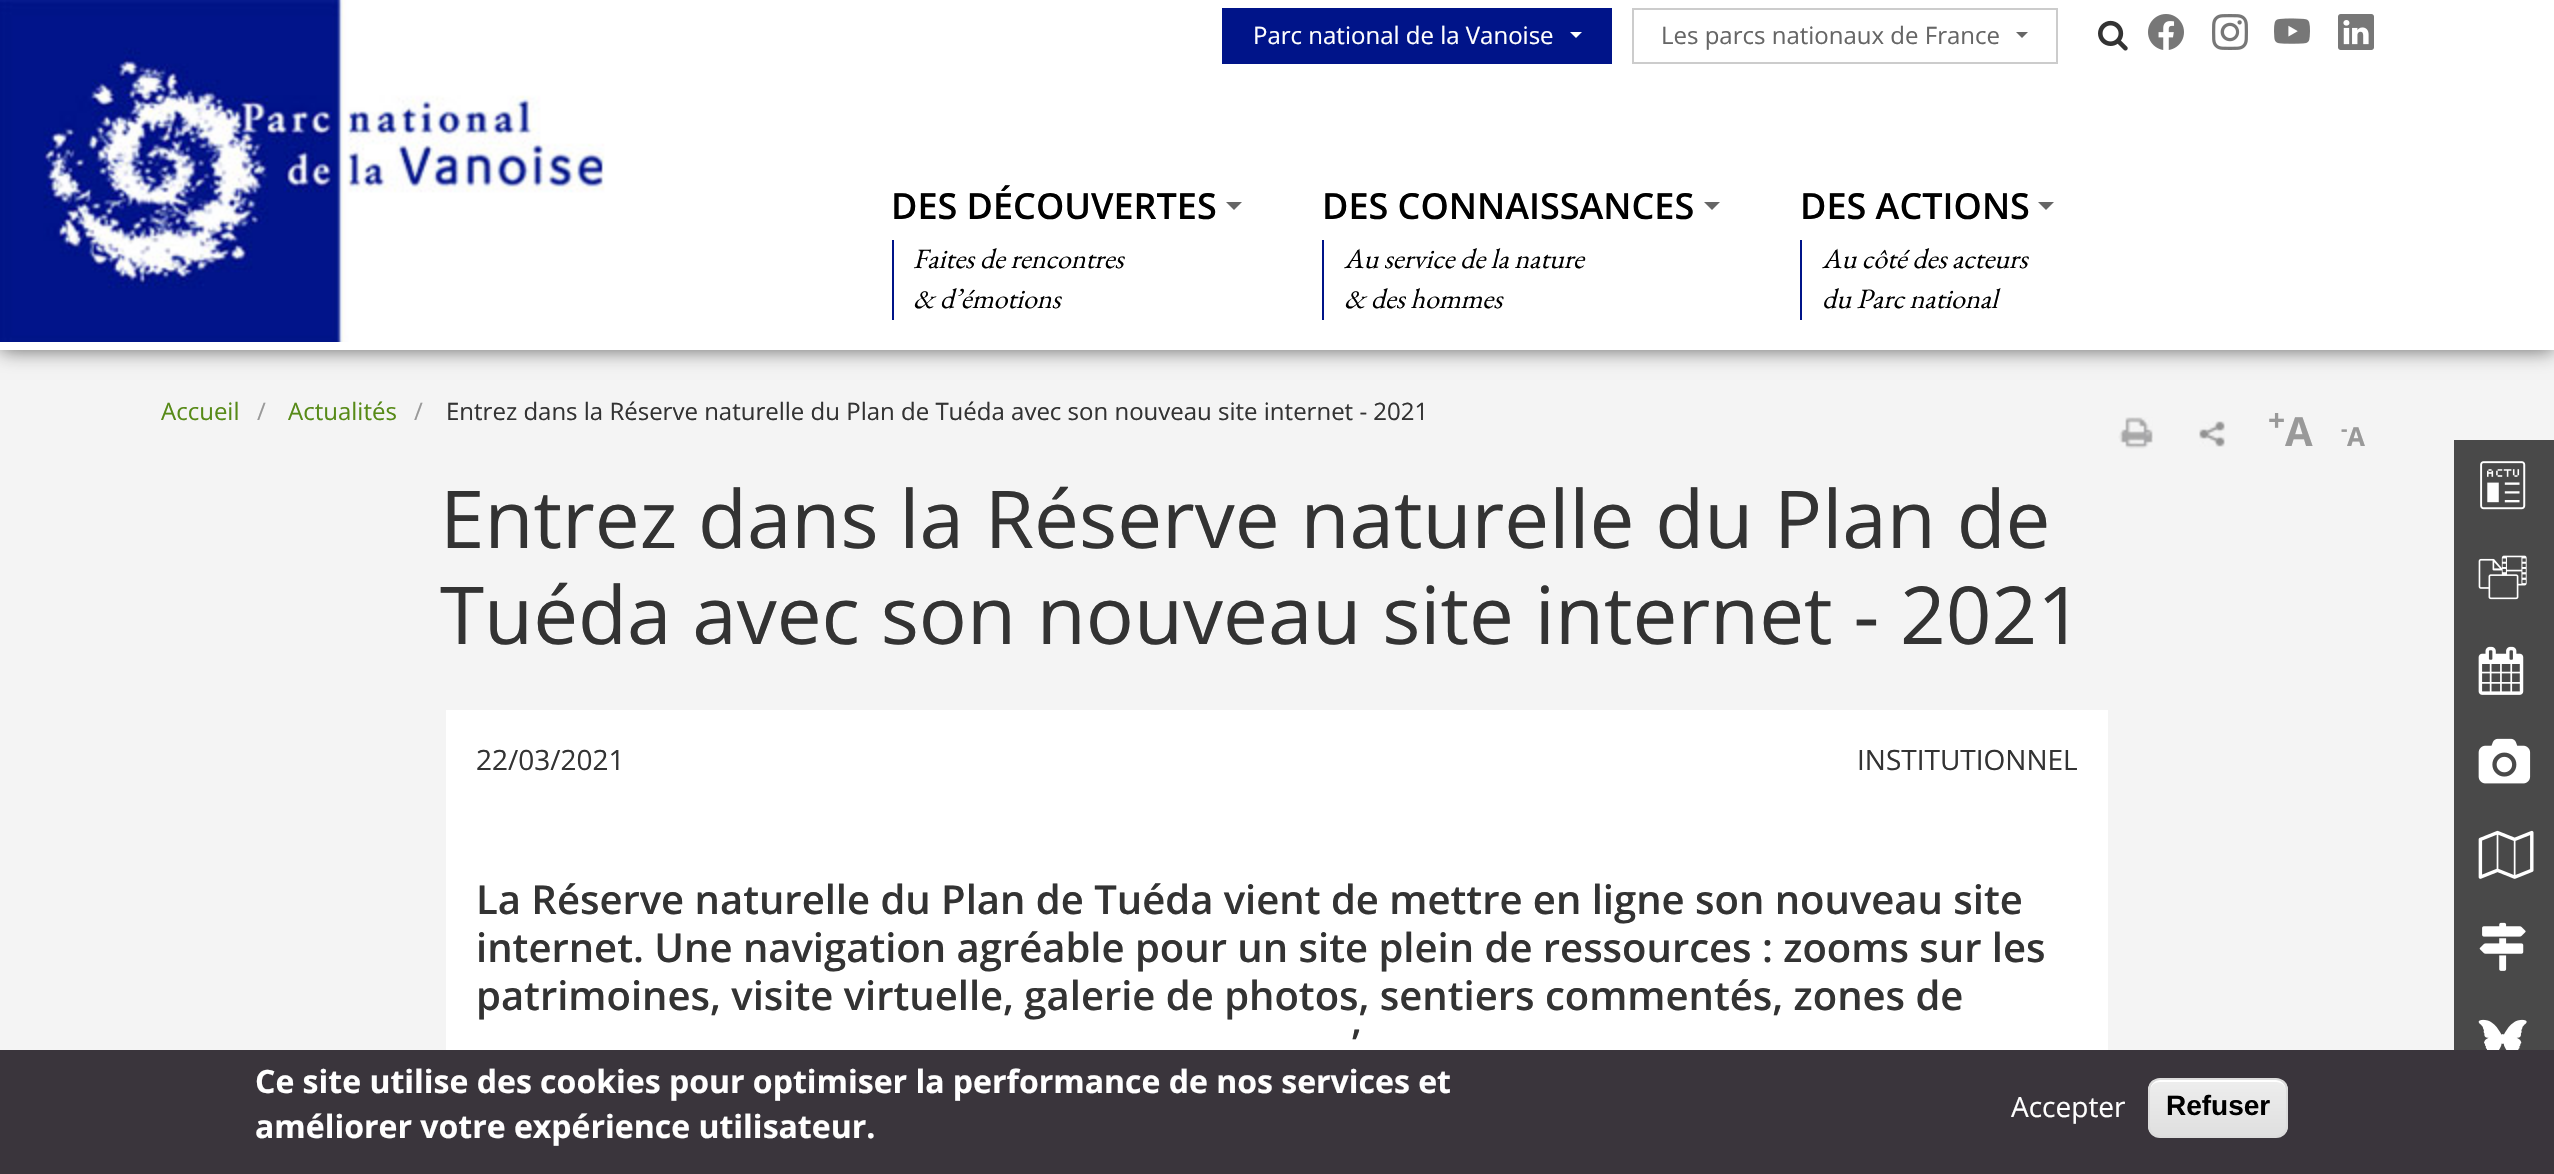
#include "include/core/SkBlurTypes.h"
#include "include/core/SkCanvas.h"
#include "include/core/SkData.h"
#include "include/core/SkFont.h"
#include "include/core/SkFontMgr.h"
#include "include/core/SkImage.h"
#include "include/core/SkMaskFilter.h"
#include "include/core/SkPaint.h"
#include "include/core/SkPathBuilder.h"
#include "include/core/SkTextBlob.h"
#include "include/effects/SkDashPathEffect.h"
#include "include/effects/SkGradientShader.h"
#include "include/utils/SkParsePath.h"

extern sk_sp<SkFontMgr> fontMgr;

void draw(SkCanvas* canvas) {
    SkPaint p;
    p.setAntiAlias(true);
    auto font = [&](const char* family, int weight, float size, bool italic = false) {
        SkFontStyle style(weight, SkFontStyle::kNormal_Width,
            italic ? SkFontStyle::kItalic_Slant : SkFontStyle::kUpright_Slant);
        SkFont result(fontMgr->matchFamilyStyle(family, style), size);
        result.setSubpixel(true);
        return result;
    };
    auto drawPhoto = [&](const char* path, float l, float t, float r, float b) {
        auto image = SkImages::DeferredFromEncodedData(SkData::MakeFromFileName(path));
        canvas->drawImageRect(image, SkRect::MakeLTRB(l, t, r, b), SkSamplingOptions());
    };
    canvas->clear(0xFFF4F4F4);
    p.setColor(0x99000000);
    p.setMaskFilter(SkMaskFilter::MakeBlur(kNormal_SkBlurStyle, 10));
    canvas->drawRect(SkRect::MakeLTRB(0, 0, 2554, 350), p);
    p.setMaskFilter(nullptr);
    p.setColor(0xFFFFFFFF);
    canvas->drawRect(SkRect::MakeLTRB(0, 0, 2554, 350), p);
    drawPhoto("media/1.png", 0, 0, 605, 342);
    p.setColor(0xFF001489);
    canvas->drawRect(SkRect::MakeLTRB(1222, 8, 1612, 64), p);
    auto font1 = font("Open Sans", 400, 24);
    p.setColor(0xFFFFFFFF);
    canvas->drawString("Parc national de la Vanoise", 1253, 44, font1, p);
    canvas->drawPath(SkPathBuilder().moveTo(1570, 32).lineTo(1582, 32).lineTo(1576, 38).close().detach(), p);
    p.setStyle(SkPaint::kStroke_Style);
    p.setStrokeWidth(2);
    p.setColor(0xFFCCCCCC);
    canvas->drawRect(SkRect::MakeLTRB(1633, 9, 2057, 63), p);
    p.setStyle(SkPaint::kFill_Style);
    p.setColor(0xFF666666);
    canvas->drawString("Les parcs nationaux de France", 1661, 44, font1, p);
    canvas->drawPath(SkPathBuilder().moveTo(2016, 32).lineTo(2028, 32).lineTo(2022, 38).close().detach(), p);
    drawPhoto("media/2.png", 2098, 20, 2128, 51);
    drawPhoto("media/3.png", 2148, 14, 2184, 50);
    drawPhoto("media/4.png", 2212, 14, 2248, 50);
    drawPhoto("media/5.png", 2274, 18, 2310, 44);
    drawPhoto("media/6.png", 2338, 14, 2374, 50);
    auto font2 = font("Open Sans", 600, 36);
    p.setColor(0xFF000000);
    canvas->drawString("DES DÉCOUVERTES", 891, 219, font2, p);
    p.setColor(0xFF666666);
    canvas->drawPath(SkPathBuilder().moveTo(1226, 202).lineTo(1242, 202).lineTo(1234, 210).close().detach(), p);
    p.setColor(0xFF001489);
    canvas->drawRect(SkRect::MakeLTRB(892, 240, 894, 320), p);
    auto font3 = font("EB Garamond", 400, 28, true);
    p.setColor(0xFF000000);
    canvas->drawString("Faites de rencontres", 913, 268, font3, p);
    canvas->drawString("& d’émotions", 913, 308, font3, p);
    canvas->drawString("DES CONNAISSANCES", 1322, 219, font2, p);
    p.setColor(0xFF666666);
    canvas->drawPath(SkPathBuilder().moveTo(1704, 202).lineTo(1720, 202).lineTo(1712, 210).close().detach(), p);
    p.setColor(0xFF001489);
    canvas->drawRect(SkRect::MakeLTRB(1322, 240, 1324, 320), p);
    p.setColor(0xFF000000);
    canvas->drawString("Au service de la nature", 1344, 268, font3, p);
    canvas->drawString("& des hommes", 1344, 308, font3, p);
    canvas->drawString("DES ACTIONS", 1800, 219, font2, p);
    p.setColor(0xFF666666);
    canvas->drawPath(SkPathBuilder().moveTo(2038, 202).lineTo(2054, 202).lineTo(2046, 210).close().detach(), p);
    p.setColor(0xFF001489);
    canvas->drawRect(SkRect::MakeLTRB(1800, 240, 1802, 320), p);
    p.setColor(0xFF000000);
    canvas->drawString("Au côté des acteurs", 1822, 268, font3, p);
    canvas->drawString("du Parc national", 1822, 308, font3, p);
    p.setColor(0xFF494949);
    canvas->drawRect(SkRect::MakeLTRB(2454, 440, 2554, 1050), p);
    drawPhoto("media/7.png", 2480, 461, 2526, 510);
    drawPhoto("media/8.png", 2478, 555, 2527, 600);
    drawPhoto("media/9.png", 2478, 646, 2524, 695);
    drawPhoto("media/10.png", 2478, 738, 2531, 784);
    drawPhoto("media/11.png", 2478, 830, 2534, 879);
    drawPhoto("media/12.png", 2479, 922, 2526, 971);
    drawPhoto("media/13.png", 2478, 1019, 2527, 1050);
    p.setColor(0xFF578A17);
    canvas->drawString("Accueil", 161, 420, font1, p);
    p.setColor(0xFF999999);
    canvas->drawString("/", 257, 420, font1, p);
    p.setColor(0xFF578A17);
    canvas->drawString("Actualités", 288, 420, font1, p);
    p.setColor(0xFF999999);
    canvas->drawString("/", 414, 420, font1, p);
    p.setColor(0xFF333333);
    canvas->drawString("Entrez dans la Réserve naturelle du Plan de Tuéda avec son nouveau site internet - 2021", 446, 420, font1, p);
    drawPhoto("media/14.png", 2118, 417, 2153, 449);
    drawPhoto("media/15.png", 2199, 421, 2225, 447);
    auto font4 = font("Open Sans", 700, 30);
    p.setColor(0xFF999999);
    canvas->drawString("+", 2268, 431, font4, p);
    auto font5 = font("Open Sans", 700, 40);
    canvas->drawString("A", 2285, 446, font5, p);
    auto font6 = font("Open Sans", 700, 20);
    canvas->drawString("-", 2341, 436, font6, p);
    auto font7 = font("Open Sans", 700, 26);
    canvas->drawString("A", 2347, 446, font7, p);
    auto font8 = font("Open Sans", 400, 80);
    p.setColor(0xFF333333);
    canvas->drawString("Entrez dans la Réserve naturelle du Plan de", 440, 548, font8, p);
    canvas->drawString("Tuéda avec son nouveau site internet - 2021", 440, 644, font8, p);
    p.setColor(0xFFFFFFFF);
    canvas->drawRect(SkRect::MakeLTRB(446, 710, 2108, 1050), p);
    auto font9 = font("Open Sans", 400, 28);
    p.setColor(0xFF333333);
    canvas->drawString("22/03/2021", 476, 770, font9, p);
    canvas->drawString("INSTITUTIONNEL", 1857, 770, font9, p);
    auto font10 = font("Open Sans", 600, 40);
    {
        const struct { const char* s; float x, y; } items[] = {
            {"La Réserve naturelle du Plan de Tuéda vient de mettre en ligne son nouveau site", 476, 914},
            {"internet. Une navigation agréable pour un site plein de ressources : zooms sur les", 476, 962},
            {"patrimoines, visite virtuelle, galerie de photos, sentiers commentés, zones de", 476, 1010},
            {"’", 1352, 1058},
        };
        for (auto [s, x, y] : items) {
            canvas->drawString(s, x, y, font10, p);
        }
    }
    p.setColor(0xFF3A353C);
    canvas->drawRect(SkRect::MakeLTRB(0, 1050, 2554, 1174), p);
    auto font11 = font("Open Sans", 700, 32);
    p.setColor(0xFFFFFFFF);
    canvas->drawString("Ce site utilise des cookies pour optimiser la performance de nos services et", 255, 1093, font11, p);
    canvas->drawString("améliorer votre expérience utilisateur.", 255, 1138, font11, p);
    canvas->drawString("Accepter", 2011, 1117, font9, p);
    canvas->save();
    canvas->clipPath(SkPathBuilder().moveTo(2160, 1078).lineTo(2276, 1078).cubicTo(2282.5f, 1078, 2288, 1083.5f, 2288, 1090).lineTo(2288, 1126).cubicTo(2288, 1132.5f, 2282.5f, 1138, 2276, 1138).lineTo(2160, 1138).cubicTo(2153.5f, 1138, 2148, 1132.5f, 2148, 1126).lineTo(2148, 1090).cubicTo(2148, 1083.5f, 2153.5f, 1078, 2160, 1078).close().detach(), true);
    {
        const SkColor colors[] = {0xFFEDEDED, 0xFFDFDFDF};
        const float stops[] = {0.05f, 1};
        const SkPoint ends[] = {{2218, 1080}, {2218, 1136}};
        p.setShader(SkGradientShader::MakeLinear(ends, colors, stops, 2, SkTileMode::kClamp));
        p.setAlpha(255);
    }
    canvas->drawRect(SkRect::MakeLTRB(2148, 1080, 2288, 1136), p);
    canvas->restore();
    p.setShader(nullptr);
    p.setColor(0xFFFFFFFF);
    canvas->drawPath(SkPathBuilder().moveTo(2160, 1082).lineTo(2276, 1082).cubicTo(2282, 1082, 2286, 1086, 2286, 1092).cubicTo(2286, 1075, 2269, 1080, 2257, 1080).lineTo(2179, 1080).cubicTo(2167, 1080, 2150, 1075, 2150, 1092).cubicTo(2150, 1086, 2154, 1082, 2160, 1082).close().detach(), p);
    p.setStyle(SkPaint::kStroke_Style);
    p.setColor(0xFFDCDCDC);
    canvas->drawRoundRect(SkRect::MakeLTRB(2149, 1079, 2287, 1137), 11, 11, p);
    auto font12 = font("Liberation Sans", 700, 28);
    p.setStyle(SkPaint::kFill_Style);
    p.setColor(0xFF000000);
    canvas->drawString("Refuser", 2166, 1115, font12, p);
}
